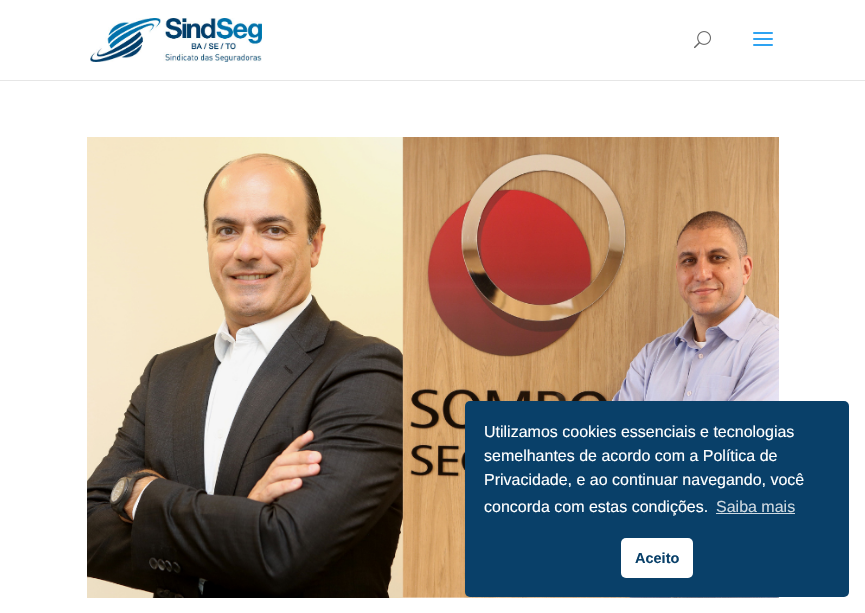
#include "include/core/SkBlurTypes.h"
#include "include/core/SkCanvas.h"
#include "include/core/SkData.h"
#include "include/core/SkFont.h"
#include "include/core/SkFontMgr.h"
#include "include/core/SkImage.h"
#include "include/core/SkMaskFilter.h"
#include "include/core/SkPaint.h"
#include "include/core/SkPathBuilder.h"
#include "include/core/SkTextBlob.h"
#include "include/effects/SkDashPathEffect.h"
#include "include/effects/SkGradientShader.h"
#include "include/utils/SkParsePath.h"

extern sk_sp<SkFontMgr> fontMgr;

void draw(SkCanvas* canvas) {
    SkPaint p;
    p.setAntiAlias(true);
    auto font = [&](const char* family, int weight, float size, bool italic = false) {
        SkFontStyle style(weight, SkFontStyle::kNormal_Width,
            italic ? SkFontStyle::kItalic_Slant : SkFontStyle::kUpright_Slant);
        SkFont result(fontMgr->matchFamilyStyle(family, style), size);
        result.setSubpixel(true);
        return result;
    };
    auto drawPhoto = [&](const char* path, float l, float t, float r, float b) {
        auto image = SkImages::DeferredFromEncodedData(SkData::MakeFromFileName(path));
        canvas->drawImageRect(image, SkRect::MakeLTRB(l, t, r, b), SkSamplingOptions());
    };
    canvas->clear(0xFFFFFFFF);
    p.setColor(0xFFE6E6E6);
    canvas->drawRect(SkRect::MakeLTRB(0, 80, 865, 81), p);
    drawPhoto("media/1.png", 90, 18, 262, 62);
    drawPhoto("media/2.png", 694, 31, 711, 49);
    drawPhoto("media/3.png", 753, 32, 773, 46);
    drawPhoto("media/4.png", 87, 137, 779, 598);
    p.setColor(0xFF094069);
    canvas->drawRoundRect(SkRect::MakeLTRB(465, 401, 849, 597), 5, 5, p);
    auto font1 = font("Liberation Sans", 400, 16);
    p.setColor(0xFFFFFFFF);
    {
        const struct { const char* s; float x, y; } items[] = {
            {"Utilizamos cookies essenciais e tecnologias", 484, 437},
            {"semelhantes de acordo com a Política de", 484, 461},
            {"Privacidade, e ao continuar navegando, você", 484, 485},
            {"concorda com estas condições.", 484, 512},
        };
        for (auto [s, x, y] : items) {
            canvas->drawString(s, x, y, font1, p);
        }
    }
    p.setColor(0xFFCED9E1);
    canvas->drawString("Saiba mais", 716, 512, font1, p);
    canvas->drawRect(SkRect::MakeLTRB(716, 513, 795, 514), p);
    p.setColor(0xFFFFFFFF);
    canvas->drawRoundRect(SkRect::MakeLTRB(621, 538, 693, 578), 5, 5, p);
    auto font2 = font("Liberation Sans", 700, 14.5f);
    p.setColor(0xFF094069);
    canvas->drawString("Aceito", 635, 563, font2, p);
}
